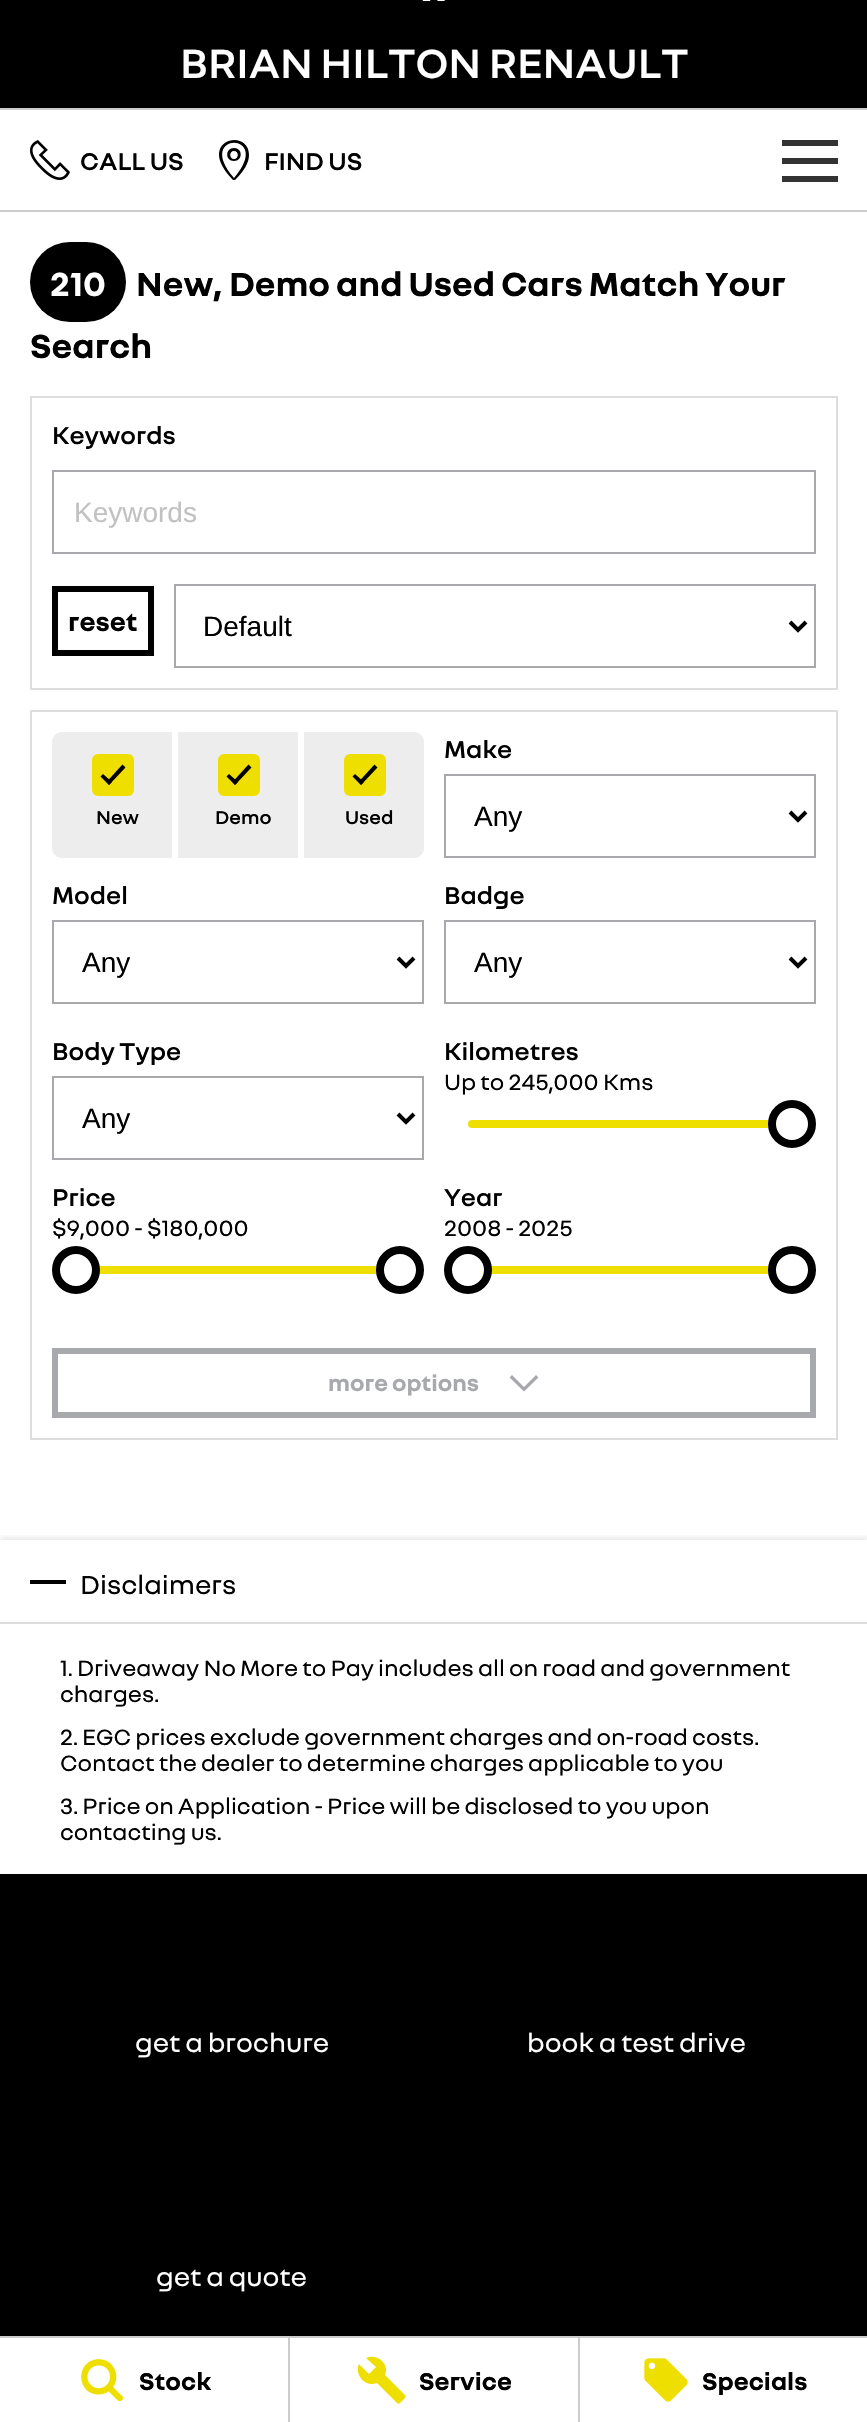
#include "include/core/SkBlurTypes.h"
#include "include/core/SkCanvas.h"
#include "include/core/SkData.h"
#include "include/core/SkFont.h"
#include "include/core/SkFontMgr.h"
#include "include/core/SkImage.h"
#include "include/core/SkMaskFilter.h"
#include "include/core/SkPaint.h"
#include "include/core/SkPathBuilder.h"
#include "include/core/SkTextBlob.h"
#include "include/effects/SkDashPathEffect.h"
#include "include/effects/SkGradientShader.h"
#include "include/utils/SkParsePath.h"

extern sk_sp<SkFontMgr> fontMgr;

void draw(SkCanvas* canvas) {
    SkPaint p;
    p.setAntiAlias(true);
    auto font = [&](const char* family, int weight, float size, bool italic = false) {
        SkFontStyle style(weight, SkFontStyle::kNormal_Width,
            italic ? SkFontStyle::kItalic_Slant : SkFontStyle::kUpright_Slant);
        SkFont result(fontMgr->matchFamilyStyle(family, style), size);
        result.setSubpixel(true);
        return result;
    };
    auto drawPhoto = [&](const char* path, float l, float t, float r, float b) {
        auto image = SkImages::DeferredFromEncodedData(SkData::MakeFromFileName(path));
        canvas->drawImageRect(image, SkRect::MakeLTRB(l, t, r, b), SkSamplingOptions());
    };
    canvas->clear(0xFFFFFFFF);
    p.setColor(0xFF000000);
    canvas->drawRect(SkRect::MakeLTRB(0, 0, 867, 108), p);
    p.setColor(0xFFCCCCCC);
    canvas->drawRect(SkRect::MakeLTRB(0, 108, 867, 110), p);
    drawPhoto("media/1.png", 422, 0, 445, 1);
    auto font1 = font("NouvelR", 600, 44);
    p.setColor(0xFFFFFFFF);
    canvas->drawString("BRIAN HILTON RENAULT", 180, 78, font1, p);
    p.setColor(0xFFCCCCCC);
    canvas->drawRect(SkRect::MakeLTRB(0, 210, 867, 212), p);
    drawPhoto("media/2.png", 30, 140, 70, 180);
    auto font2 = font("NouvelR", 600, 26);
    p.setColor(0xFF000000);
    canvas->drawString("CALL US", 80, 170, font2, p);
    canvas->drawPath(SkPathBuilder().moveTo(249, 155).cubicTo(249, 163, 244, 171, 235, 180).lineTo(233, 180).cubicTo(194, 140, 249, 127, 249, 155).close().moveTo(234, 178).cubicTo(275, 131, 193, 131, 234, 178).close().moveTo(234, 148).cubicTo(243, 148, 243, 161, 234, 161).cubicTo(225, 161, 225, 148, 234, 148).close().moveTo(234, 151).cubicTo(229, 151, 229, 159, 234, 159).cubicTo(239, 159, 239, 151, 234, 151).close().detach(), p);
    canvas->drawString("FIND US", 264, 170, font2, p);
    {
        const struct { float l, t, r, b; SkColor color; } items[] = {
            {782, 140, 838, 146, 0xFF333333},
            {782, 158, 838, 164, 0xFF333333},
            {782, 176, 838, 182, 0xFF333333},
        };
        for (auto [l, t, r, b, color] : items) {
            p.setColor(color);
            canvas->drawRect(SkRect::MakeLTRB(l, t, r, b), p);
        }
    }
    p.setColor(0xFF000000);
    canvas->drawRoundRect(SkRect::MakeLTRB(30, 242, 126, 322), 40, 40, p);
    auto font3 = font("NouvelR", 700, 36);
    p.setColor(0xFFFFFFFF);
    canvas->drawString("210", 50, 296, font3, p);
    p.setColor(0xFF000000);
    canvas->drawString("New, Demo and Used Cars Match Your", 136, 296, font3, p);
    canvas->drawString("Search", 30, 358, font3, p);
    p.setStyle(SkPaint::kStroke_Style);
    p.setStrokeWidth(2);
    p.setColor(0xFFDCDDDE);
    canvas->drawRect(SkRect::MakeLTRB(31, 397, 837, 689), p);
    p.setStyle(SkPaint::kFill_Style);
    p.setColor(0xFF000000);
    canvas->drawString("Keywords", 52, 444, font2, p);
    p.setStyle(SkPaint::kStroke_Style);
    p.setColor(0xFFA7A9AC);
    canvas->drawRect(SkRect::MakeLTRB(53, 471, 815, 553), p);
    auto font4 = font("Liberation Sans", 400, 28);
    p.setStyle(SkPaint::kFill_Style);
    p.setColor(0xFFC1C1C1);
    canvas->drawString("Keywords", 74, 522, font4, p);
    p.setStyle(SkPaint::kStroke_Style);
    p.setStrokeWidth(6);
    p.setColor(0xFF000000);
    canvas->drawRect(SkRect::MakeLTRB(55, 589, 151, 653), p);
    auto font5 = font("NouvelR", 700, 28);
    p.setStyle(SkPaint::kFill_Style);
    canvas->drawString("reset", 68, 631, font5, p);
    p.setStyle(SkPaint::kStroke_Style);
    p.setStrokeWidth(2);
    p.setColor(0xFFA7A9AC);
    canvas->drawRect(SkRect::MakeLTRB(175, 585, 815, 667), p);
    p.setStrokeWidth(4);
    p.setColor(0xFF000000);
    canvas->drawPath(SkPathBuilder().moveTo(790, 622).lineTo(798, 630).lineTo(806, 622).detach(), p);
    p.setStyle(SkPaint::kFill_Style);
    canvas->drawString("Default", 203, 636, font4, p);
    p.setStyle(SkPaint::kStroke_Style);
    p.setStrokeWidth(2);
    p.setColor(0xFFDCDDDE);
    canvas->drawRect(SkRect::MakeLTRB(31, 711, 837, 1439), p);
    p.setStyle(SkPaint::kFill_Style);
    p.setColor(0xFFEDEDED);
    canvas->drawPath(SkPathBuilder().moveTo(62, 732).lineTo(172, 732).lineTo(172, 858).lineTo(62, 858).cubicTo(56.5f, 858, 52, 853.5f, 52, 848).lineTo(52, 742).cubicTo(52, 736.5f, 56.5f, 732, 62, 732).close().detach(), p);
    p.setColor(0xFFEFDF00);
    canvas->drawRoundRect(SkRect::MakeLTRB(93, 755, 133, 795), 5, 5, p);
    p.setStyle(SkPaint::kStroke_Style);
    canvas->drawRoundRect(SkRect::MakeLTRB(93, 755, 133, 795), 5, 5, p);
    p.setStyle(SkPaint::kFill_Style);
    p.setColor(0xFF000000);
    canvas->drawPath(SkPathBuilder().moveTo(122.5f, 764.5f).lineTo(125.5f, 767.5f).lineTo(109, 785).lineTo(106.5f, 782).close().detach(), p);
    canvas->drawPath(SkPathBuilder().moveTo(103, 774).lineTo(112, 782).lineTo(109, 785).lineTo(100.5f, 776.5f).close().detach(), p);
    auto font6 = font("NouvelR", 600, 20);
    canvas->drawString("New", 96, 824, font6, p);
    p.setColor(0xFFEDEDED);
    canvas->drawRect(SkRect::MakeLTRB(178, 732, 298, 858), p);
    p.setColor(0xFFEFDF00);
    canvas->drawRoundRect(SkRect::MakeLTRB(219, 755, 259, 795), 5, 5, p);
    p.setStyle(SkPaint::kStroke_Style);
    canvas->drawRoundRect(SkRect::MakeLTRB(219, 755, 259, 795), 5, 5, p);
    p.setStyle(SkPaint::kFill_Style);
    p.setColor(0xFF000000);
    canvas->drawPath(SkPathBuilder().moveTo(248.5f, 764.5f).lineTo(251.5f, 767.5f).lineTo(235, 785).lineTo(232.5f, 782).close().detach(), p);
    canvas->drawPath(SkPathBuilder().moveTo(229, 774).lineTo(238, 782).lineTo(235, 785).lineTo(226.5f, 776.5f).close().detach(), p);
    canvas->drawString("Demo", 215, 824, font6, p);
    p.setColor(0xFFEDEDED);
    canvas->drawPath(SkPathBuilder().moveTo(304, 732).lineTo(414, 732).cubicTo(419.5f, 732, 424, 736.5f, 424, 742).lineTo(424, 848).cubicTo(424, 853.5f, 419.5f, 858, 414, 858).lineTo(304, 858).close().detach(), p);
    p.setColor(0xFFEFDF00);
    canvas->drawRoundRect(SkRect::MakeLTRB(345, 755, 385, 795), 5, 5, p);
    p.setStyle(SkPaint::kStroke_Style);
    canvas->drawRoundRect(SkRect::MakeLTRB(345, 755, 385, 795), 5, 5, p);
    p.setStyle(SkPaint::kFill_Style);
    p.setColor(0xFF000000);
    canvas->drawPath(SkPathBuilder().moveTo(374.5f, 764.5f).lineTo(377.5f, 767.5f).lineTo(361, 785).lineTo(358.5f, 782).close().detach(), p);
    canvas->drawPath(SkPathBuilder().moveTo(355, 774).lineTo(364, 782).lineTo(361, 785).lineTo(352.5f, 776.5f).close().detach(), p);
    canvas->drawString("Used", 345, 824, font6, p);
    canvas->drawString("Make", 444, 758, font2, p);
    p.setStyle(SkPaint::kStroke_Style);
    p.setColor(0xFFA7A9AC);
    canvas->drawRect(SkRect::MakeLTRB(445, 775, 815, 857), p);
    p.setStrokeWidth(4);
    p.setColor(0xFF000000);
    canvas->drawPath(SkPathBuilder().moveTo(790, 812).lineTo(798, 820).lineTo(806, 812).detach(), p);
    p.setStyle(SkPaint::kFill_Style);
    canvas->drawString("Any", 474, 826, font4, p);
    canvas->drawString("Model", 52, 904, font2, p);
    p.setStyle(SkPaint::kStroke_Style);
    p.setStrokeWidth(2);
    p.setColor(0xFFA7A9AC);
    canvas->drawRect(SkRect::MakeLTRB(53, 921, 423, 1003), p);
    p.setStrokeWidth(4);
    p.setColor(0xFF000000);
    canvas->drawPath(SkPathBuilder().moveTo(398, 958).lineTo(406, 966).lineTo(414, 958).detach(), p);
    p.setStyle(SkPaint::kFill_Style);
    canvas->drawString("Any", 82, 972, font4, p);
    canvas->drawString("Badge", 444, 904, font2, p);
    p.setStyle(SkPaint::kStroke_Style);
    p.setStrokeWidth(2);
    p.setColor(0xFFA7A9AC);
    canvas->drawRect(SkRect::MakeLTRB(445, 921, 815, 1003), p);
    p.setStrokeWidth(4);
    p.setColor(0xFF000000);
    canvas->drawPath(SkPathBuilder().moveTo(790, 958).lineTo(798, 966).lineTo(806, 958).detach(), p);
    p.setStyle(SkPaint::kFill_Style);
    canvas->drawString("Any", 474, 972, font4, p);
    canvas->drawString("Body Type", 52, 1060, font2, p);
    p.setStyle(SkPaint::kStroke_Style);
    p.setStrokeWidth(2);
    p.setColor(0xFFA7A9AC);
    canvas->drawRect(SkRect::MakeLTRB(53, 1077, 423, 1159), p);
    p.setStrokeWidth(4);
    p.setColor(0xFF000000);
    canvas->drawPath(SkPathBuilder().moveTo(398, 1114).lineTo(406, 1122).lineTo(414, 1114).detach(), p);
    p.setStyle(SkPaint::kFill_Style);
    canvas->drawString("Any", 82, 1128, font4, p);
    canvas->drawString("Kilometres", 444, 1060, font2, p);
    auto font7 = font("NouvelR", 400, 24);
    canvas->drawString("Up to 245,000 Kms", 444, 1090, font7, p);
    p.setColor(0xFFEFDF00);
    canvas->drawRoundRect(SkRect::MakeLTRB(468, 1120, 792, 1128), 4, 4, p);
    p.setColor(0xFFFFFFFF);
    canvas->drawCircle(792, 1124, 20, p);
    p.setStyle(SkPaint::kStroke_Style);
    p.setStrokeWidth(8);
    p.setColor(0xFF000000);
    canvas->drawCircle(792, 1124, 20, p);
    p.setStyle(SkPaint::kFill_Style);
    canvas->drawString("Price", 52, 1206, font2, p);
    canvas->drawString("$9,000 - $180,000", 52, 1236, font7, p);
    p.setColor(0xFFEFDF00);
    canvas->drawRect(SkRect::MakeLTRB(99, 1266, 377, 1274), p);
    p.setColor(0xFFFFFFFF);
    canvas->drawCircle(76, 1270, 20, p);
    p.setStyle(SkPaint::kStroke_Style);
    p.setColor(0xFF000000);
    canvas->drawCircle(76, 1270, 20, p);
    p.setStyle(SkPaint::kFill_Style);
    p.setColor(0xFFFFFFFF);
    canvas->drawCircle(400, 1270, 20, p);
    p.setStyle(SkPaint::kStroke_Style);
    p.setColor(0xFF000000);
    canvas->drawCircle(400, 1270, 20, p);
    p.setStyle(SkPaint::kFill_Style);
    canvas->drawString("Year", 444, 1206, font2, p);
    canvas->drawString("2008 - 2025", 444, 1236, font7, p);
    p.setColor(0xFFEFDF00);
    canvas->drawRect(SkRect::MakeLTRB(491, 1266, 769, 1274), p);
    p.setColor(0xFFFFFFFF);
    canvas->drawCircle(468, 1270, 20, p);
    p.setStyle(SkPaint::kStroke_Style);
    p.setColor(0xFF000000);
    canvas->drawCircle(468, 1270, 20, p);
    p.setStyle(SkPaint::kFill_Style);
    p.setColor(0xFFFFFFFF);
    canvas->drawCircle(792, 1270, 20, p);
    p.setStyle(SkPaint::kStroke_Style);
    p.setColor(0xFF000000);
    canvas->drawCircle(792, 1270, 20, p);
    p.setStrokeWidth(6);
    p.setColor(0xFFA7A9AC);
    canvas->drawRect(SkRect::MakeLTRB(55, 1351, 813, 1415), p);
    auto font8 = font("NouvelR", 700, 24);
    p.setStyle(SkPaint::kFill_Style);
    canvas->drawString("more options", 328, 1391, font8, p);
    canvas->drawPath(SkPathBuilder().moveTo(538.5f, 1377.5f).lineTo(524, 1391.5f).lineTo(509.5f, 1377.5f).lineTo(512, 1375).lineTo(524, 1387).lineTo(536, 1375).close().detach(), p);
    canvas->save();
    canvas->clipRect(SkRect::MakeLTRB(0, 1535, 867, 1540));
    p.setColor(0x1A000000);
    p.setMaskFilter(SkMaskFilter::MakeBlur(kNormal_SkBlurStyle, 3));
    canvas->drawRect(SkRect::MakeLTRB(0, 1538, 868, 1872), p);
    p.setMaskFilter(nullptr);
    canvas->restore();
    p.setColor(0xFF000000);
    canvas->drawRect(SkRect::MakeLTRB(30, 1580, 66, 1584), p);
    auto font9 = font("NouvelR", 400, 28);
    canvas->drawString("Disclaimers", 80, 1594, font9, p);
    p.setColor(0xFFDCDDDE);
    canvas->drawRect(SkRect::MakeLTRB(0, 1622, 867, 1624), p);
    p.setColor(0xFF000000);
    {
        const struct { const char* s; float x, y; } items[] = {
            {"1. Driveaway No More to Pay includes all on road and government", 60, 1676},
            {"charges.", 60, 1702},
            {"2. EGC prices exclude government charges and on-road costs.", 60, 1745},
            {"Contact the dealer to determine charges applicable to you", 60, 1771},
            {"3. Price on Application - Price will be disclosed to you upon", 60, 1814},
            {"contacting us.", 60, 1840},
        };
        for (auto [s, x, y] : items) {
            canvas->drawString(s, x, y, font7, p);
        }
    }
    canvas->drawRect(SkRect::MakeLTRB(0, 1874, 867, 2336), p);
    p.setColor(0xFFFFFFFF);
    {
        const struct { const char* s; float x, y; } items[] = {
            {"get a brochure", 135, 2052},
            {"book a test drive", 527, 2052},
            {"get a quote", 156, 2286},
        };
        for (auto [s, x, y] : items) {
            canvas->drawString(s, x, y, font9, p);
        }
    }
    p.setColor(0xFFCCCCCC);
    canvas->drawRect(SkRect::MakeLTRB(0, 2336, 867, 2338), p);
    canvas->drawRect(SkRect::MakeLTRB(288, 2338, 290, 2422), p);
    drawPhoto("media/3.png", 81, 2359, 123, 2401);
    auto font10 = font("NouvelR", 700, 26);
    p.setColor(0xFF000000);
    canvas->drawString("Stock", 139, 2390, font10, p);
    p.setColor(0xFFCCCCCC);
    canvas->drawRect(SkRect::MakeLTRB(578, 2338, 580, 2422), p);
    p.setColor(0xFFEFDF00);
    canvas->drawPath(SkPathBuilder().moveTo(405, 2395).lineTo(385, 2375).cubicTo(390, 2364, 377, 2353, 366, 2358).lineTo(376, 2367).lineTo(369, 2374).lineTo(359, 2364).cubicTo(354, 2375, 366, 2388, 377, 2383).lineTo(397, 2403).cubicTo(398, 2404, 399, 2404, 400, 2403).lineTo(405, 2398).cubicTo(406, 2397, 406, 2396, 405, 2395).close().detach(), p);
    p.setColor(0xFF000000);
    canvas->drawString("Service", 419, 2390, font10, p);
    drawPhoto("media/4.png", 644, 2358, 688, 2402);
    canvas->drawString("Specials", 702, 2390, font10, p);
}
